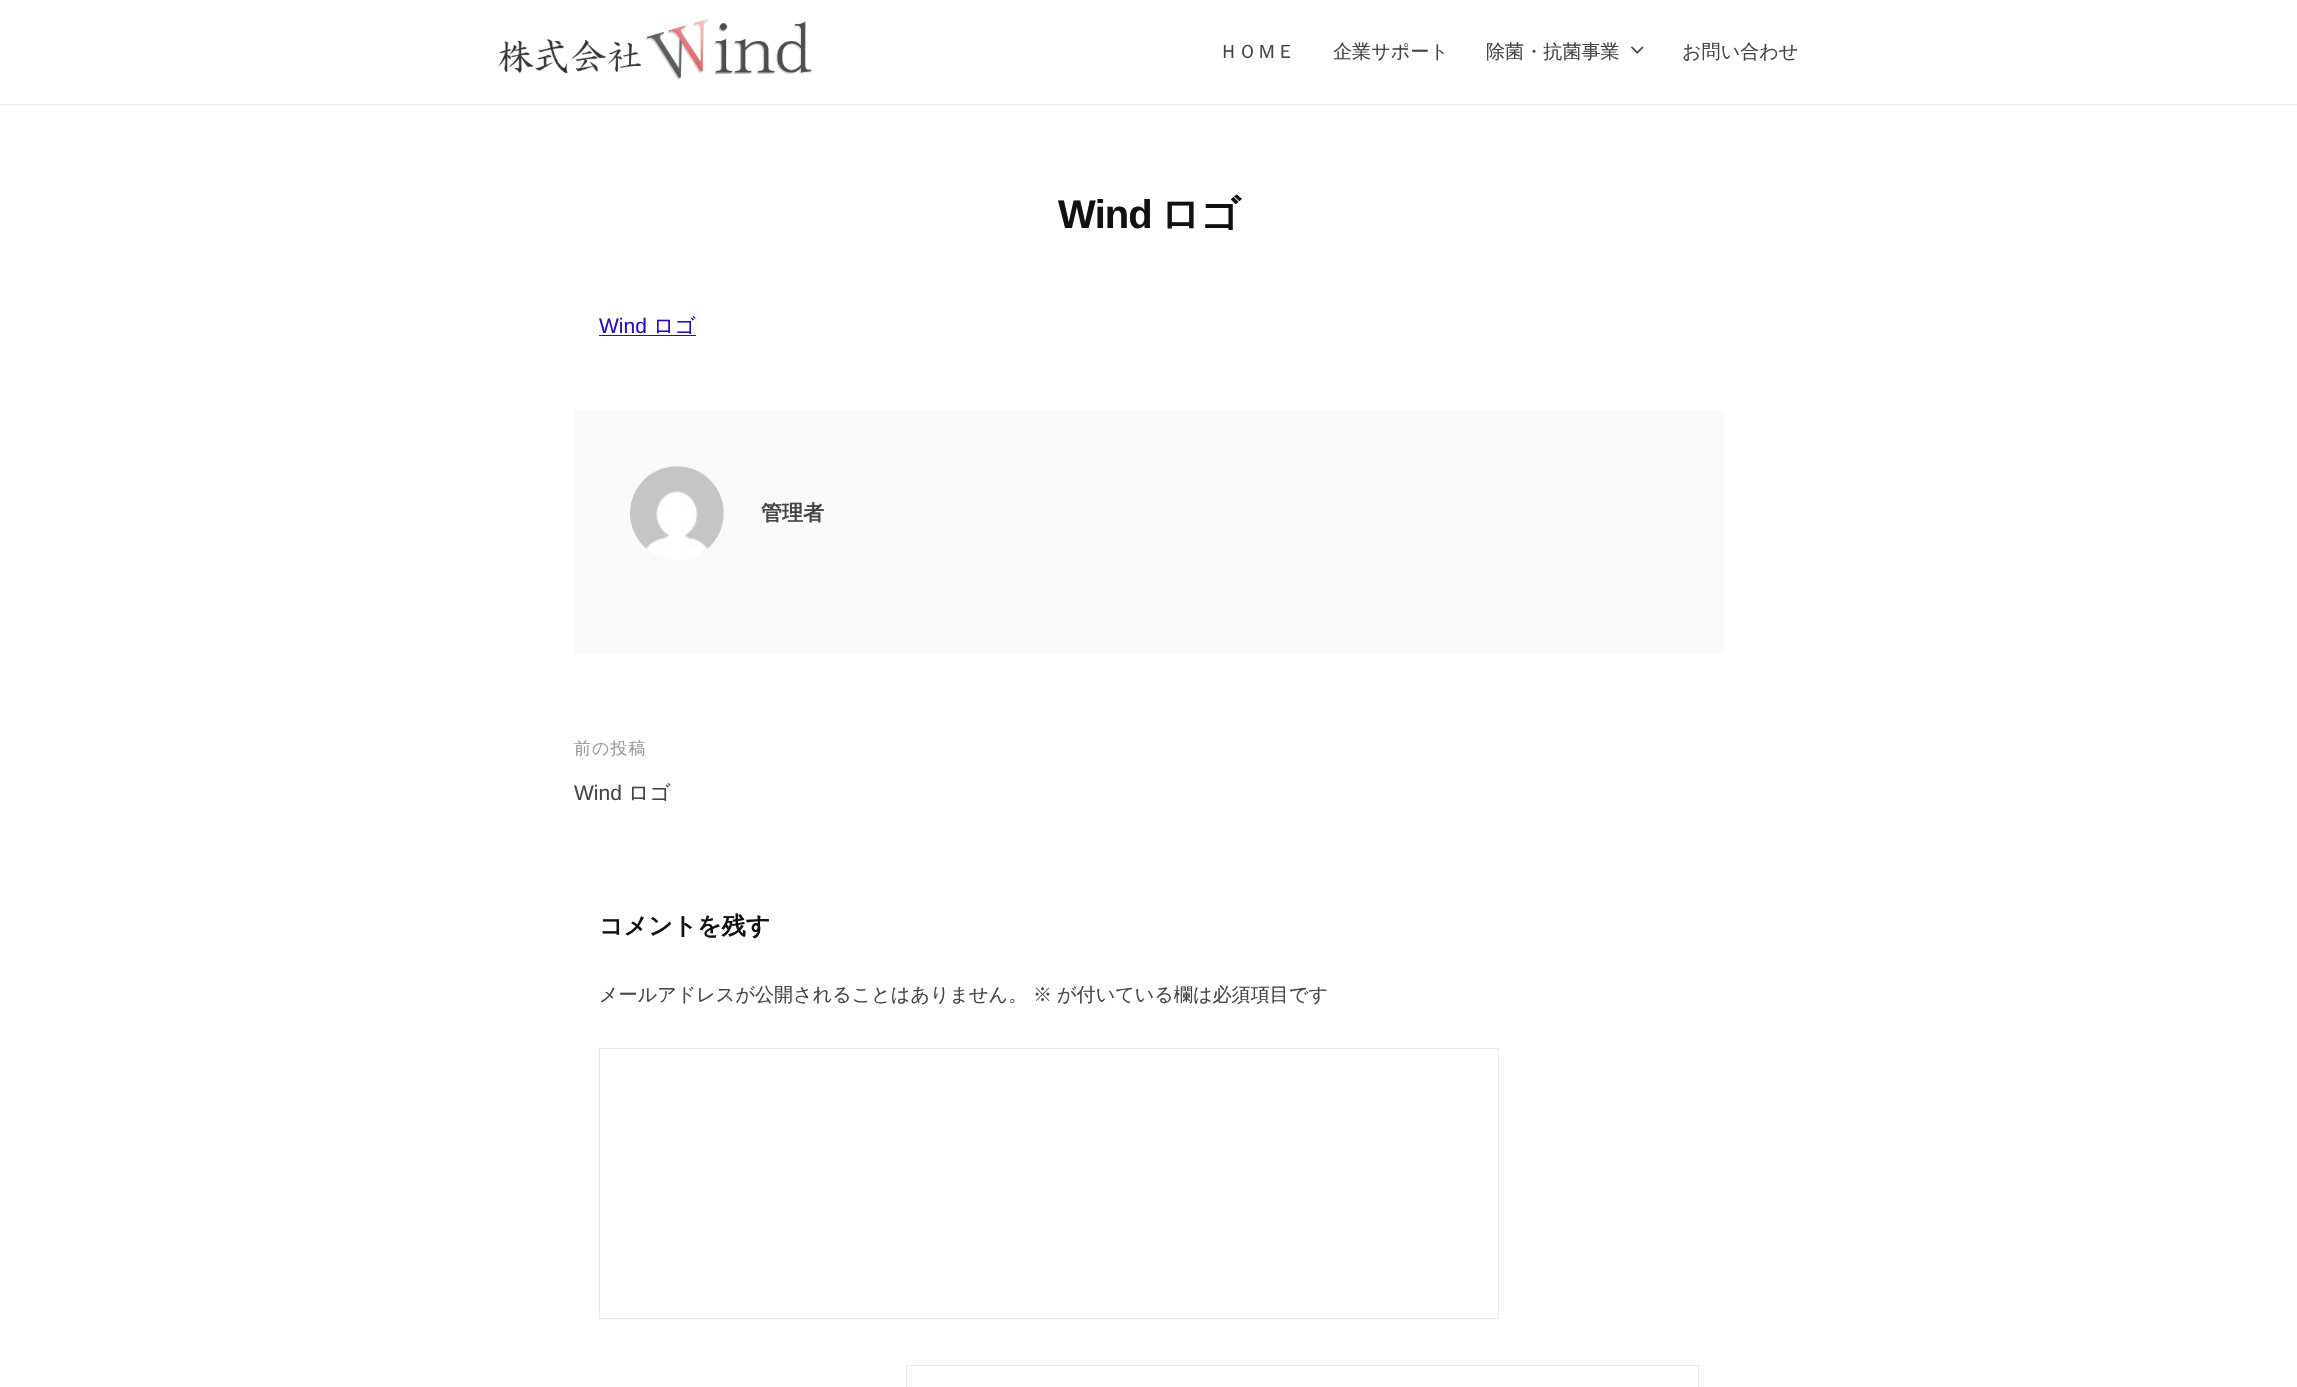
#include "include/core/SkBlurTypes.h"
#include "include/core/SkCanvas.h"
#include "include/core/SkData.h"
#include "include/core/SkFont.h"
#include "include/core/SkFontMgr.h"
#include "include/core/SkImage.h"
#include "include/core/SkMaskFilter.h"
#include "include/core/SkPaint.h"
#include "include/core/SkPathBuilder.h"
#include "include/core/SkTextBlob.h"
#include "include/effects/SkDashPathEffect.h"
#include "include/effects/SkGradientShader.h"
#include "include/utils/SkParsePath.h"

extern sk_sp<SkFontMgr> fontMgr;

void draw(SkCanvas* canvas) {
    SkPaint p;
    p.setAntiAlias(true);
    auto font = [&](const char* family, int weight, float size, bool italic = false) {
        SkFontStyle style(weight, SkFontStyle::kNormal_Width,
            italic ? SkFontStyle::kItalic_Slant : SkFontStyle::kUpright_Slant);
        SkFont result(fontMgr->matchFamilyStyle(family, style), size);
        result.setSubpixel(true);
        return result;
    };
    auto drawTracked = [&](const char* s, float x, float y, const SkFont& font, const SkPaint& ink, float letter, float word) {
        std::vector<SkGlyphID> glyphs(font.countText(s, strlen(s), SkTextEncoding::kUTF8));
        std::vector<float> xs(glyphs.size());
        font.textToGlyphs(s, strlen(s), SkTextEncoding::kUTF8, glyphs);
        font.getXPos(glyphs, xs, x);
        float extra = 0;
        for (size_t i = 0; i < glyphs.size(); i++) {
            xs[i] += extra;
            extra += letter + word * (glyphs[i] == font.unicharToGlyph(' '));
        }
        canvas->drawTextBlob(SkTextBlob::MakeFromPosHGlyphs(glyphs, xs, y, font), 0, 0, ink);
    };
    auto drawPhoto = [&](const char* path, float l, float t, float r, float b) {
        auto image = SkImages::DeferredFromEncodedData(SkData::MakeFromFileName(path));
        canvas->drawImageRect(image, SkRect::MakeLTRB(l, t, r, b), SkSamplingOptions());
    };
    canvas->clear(0xFFFFFFFF);
    p.setColor(0xFFEEEEEE);
    canvas->drawRect(SkRect::MakeLTRB(0, 104, 2297, 105), p);
    drawPhoto("media/1.png", 498, 18, 812, 80);
    auto font1 = font("WenQuanYi Zen Hei", 500, 19.1f);
    p.setColor(0xFF444444);
    {
        const struct { const char* s; float x, y; } items[] = {
            {"ＨＯＭＥ", 1219, 58},
            {"企業サポート", 1333, 58},
            {"除菌・抗菌事業", 1486, 58},
        };
        for (auto [s, x, y] : items) {
            canvas->drawString(s, x, y, font1, p);
        }
    }
    drawPhoto("media/2.png", 1631, 46, 1644, 54);
    canvas->drawString("お問い合わせ", 1682, 58, font1, p);
    auto font2 = font("Liberation Sans", 700, 40);
    p.setColor(0xFF111111);
    drawTracked("Wind", 1058, 228, font2, p, -1, 0);
    auto font3 = font("WenQuanYi Zen Hei", 700, 40);
    drawTracked("ロゴ", 1160, 228, font3, p, -1, 0);
    auto font4 = font("Liberation Sans", 400, 21);
    p.setColor(0xFF230FBC);
    canvas->drawString("Wind", 599, 333, font4, p);
    canvas->drawRect(SkRect::MakeLTRB(599, 335, 696, 336), p);
    auto font5 = font("WenQuanYi Zen Hei", 500, 21);
    canvas->drawString("ロゴ", 653, 333, font5, p);
    p.setColor(0xFFF9F9F9);
    canvas->drawRect(SkRect::MakeLTRB(574, 410, 1724, 654), p);
    drawPhoto("media/3.png", 630, 466, 724, 560);
    auto font6 = font("WenQuanYi Zen Hei", 700, 21);
    p.setColor(0xFF444444);
    canvas->drawString("管理者", 761, 520, font6, p);
    auto font7 = font("WenQuanYi Zen Hei", 500, 17);
    p.setColor(0xFF999999);
    drawTracked("前の投稿", 574, 754, font7, p, 1, 0);
    p.setColor(0xFF444444);
    canvas->drawString("Wind", 574, 800, font4, p);
    canvas->drawString("ロゴ", 628, 800, font5, p);
    auto font8 = font("WenQuanYi Zen Hei", 700, 24);
    p.setColor(0xFF111111);
    canvas->drawString("コメントを残す", 599, 934, font8, p);
    p.setColor(0xFF444444);
    {
        const struct { const char* s; float x, y; } items[] = {
            {"メールアドレスが公開されることはありません。", 599, 1001},
            {"※", 1033, 1001},
            {"が付いている欄は必須項目です", 1057, 1001},
        };
        for (auto [s, x, y] : items) {
            canvas->drawString(s, x, y, font1, p);
        }
    }
    p.setStyle(SkPaint::kStroke_Style);
    p.setStrokeWidth(1);
    p.setColor(0xFFE6E6E6);
    canvas->drawRect(SkRect::MakeLTRB(599.5f, 1048.5f, 1498.5f, 1318.5f), p);
    canvas->drawRect(SkRect::MakeLTRB(906.5f, 1365.5f, 1698.5f, 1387.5f), p);
}
